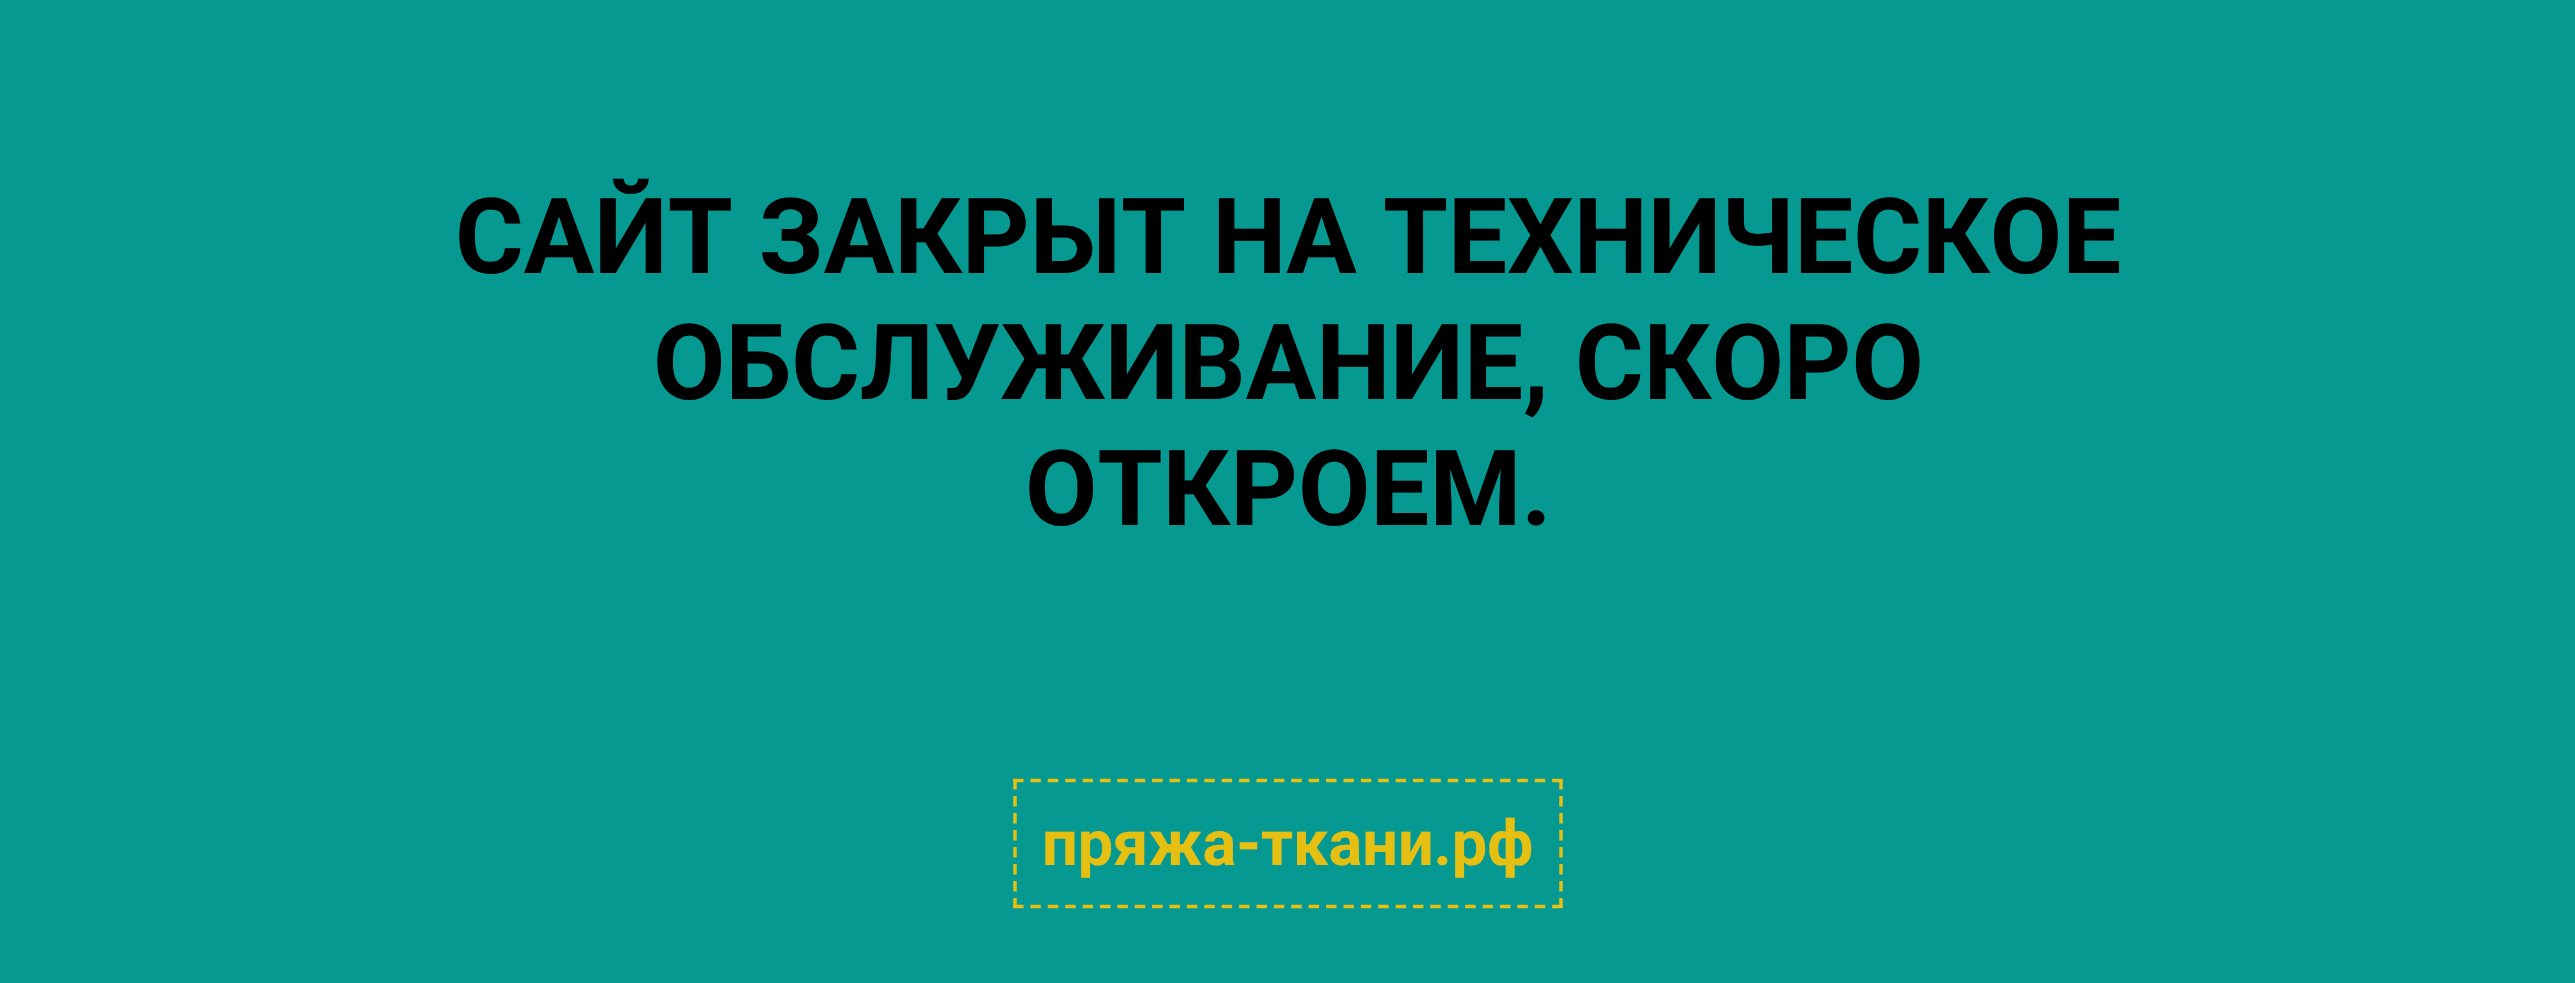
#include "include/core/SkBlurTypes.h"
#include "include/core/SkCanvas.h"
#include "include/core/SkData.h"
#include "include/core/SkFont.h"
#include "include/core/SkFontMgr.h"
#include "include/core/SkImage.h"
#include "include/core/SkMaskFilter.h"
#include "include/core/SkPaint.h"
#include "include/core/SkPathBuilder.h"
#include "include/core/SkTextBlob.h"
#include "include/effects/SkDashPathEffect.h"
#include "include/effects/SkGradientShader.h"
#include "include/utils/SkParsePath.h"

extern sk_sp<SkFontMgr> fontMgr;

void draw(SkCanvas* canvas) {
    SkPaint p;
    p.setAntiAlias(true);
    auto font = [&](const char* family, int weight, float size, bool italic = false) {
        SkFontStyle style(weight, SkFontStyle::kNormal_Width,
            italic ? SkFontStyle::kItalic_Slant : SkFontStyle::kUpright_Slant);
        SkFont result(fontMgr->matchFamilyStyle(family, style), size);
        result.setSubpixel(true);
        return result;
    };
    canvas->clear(0xFF059992);
    auto font1 = font("Roboto", 700, 105);
    p.setColor(0xFF000000);
    {
        const struct { const char* s; float x, y; } items[] = {
            {"САЙТ ЗАКРЫТ НА ТЕХНИЧЕСКОЕ", 455, 273},
            {"ОБСЛУЖИВАНИЕ, СКОРО", 653, 399},
            {"ОТКРОЕМ.", 1025, 525},
        };
        for (auto [s, x, y] : items) {
            canvas->drawString(s, x, y, font1, p);
        }
    }
    p.setStyle(SkPaint::kStroke_Style);
    p.setStrokeWidth(3.5f);
    p.setColor(0xFFE5C013);
    p.setPathEffect(SkDashPathEffect::Make({{10.5f, 6.89f}}, 0));
    canvas->drawPath(SkPathBuilder().moveTo(1013, 780.5f).lineTo(1563, 780.5f).detach(), p);
    p.setPathEffect(nullptr);
    p.setPathEffect(SkDashPathEffect::Make({{10.5f, 6.49f}}, 0));
    canvas->drawPath(SkPathBuilder().moveTo(1561, 779).lineTo(1561, 908).detach(), p);
    p.setPathEffect(nullptr);
    p.setPathEffect(SkDashPathEffect::Make({{10.5f, 6.89f}}, 0));
    canvas->drawPath(SkPathBuilder().moveTo(1013, 906.5f).lineTo(1563, 906.5f).detach(), p);
    p.setPathEffect(nullptr);
    p.setPathEffect(SkDashPathEffect::Make({{10.5f, 6.49f}}, 0));
    canvas->drawPath(SkPathBuilder().moveTo(1015, 779).lineTo(1015, 908).detach(), p);
    p.setPathEffect(nullptr);
    auto font2 = font("Roboto", 700, 63);
    p.setStyle(SkPaint::kFill_Style);
    canvas->drawString("пряжа-ткани.рф", 1042, 865, font2, p);
}
